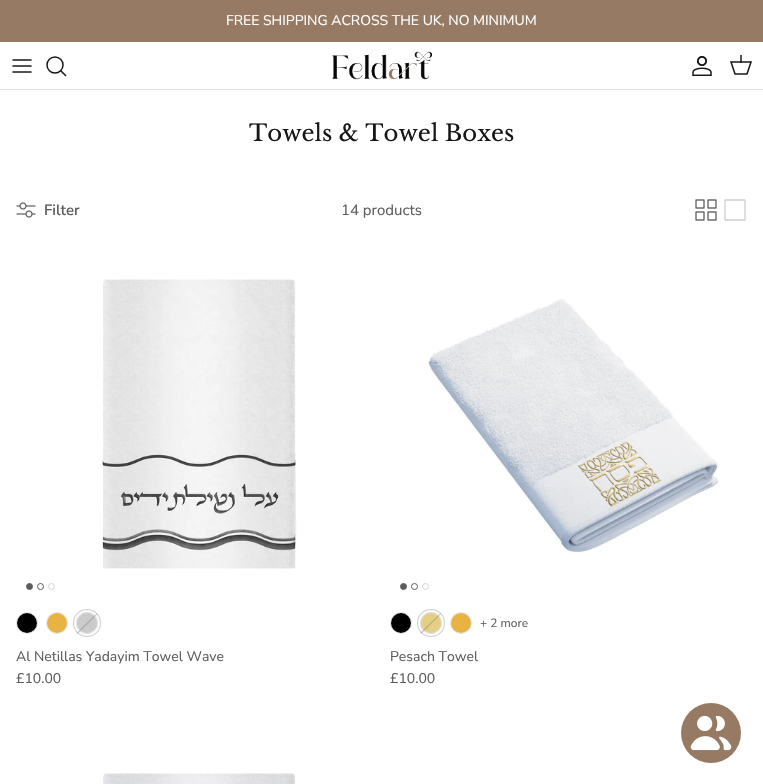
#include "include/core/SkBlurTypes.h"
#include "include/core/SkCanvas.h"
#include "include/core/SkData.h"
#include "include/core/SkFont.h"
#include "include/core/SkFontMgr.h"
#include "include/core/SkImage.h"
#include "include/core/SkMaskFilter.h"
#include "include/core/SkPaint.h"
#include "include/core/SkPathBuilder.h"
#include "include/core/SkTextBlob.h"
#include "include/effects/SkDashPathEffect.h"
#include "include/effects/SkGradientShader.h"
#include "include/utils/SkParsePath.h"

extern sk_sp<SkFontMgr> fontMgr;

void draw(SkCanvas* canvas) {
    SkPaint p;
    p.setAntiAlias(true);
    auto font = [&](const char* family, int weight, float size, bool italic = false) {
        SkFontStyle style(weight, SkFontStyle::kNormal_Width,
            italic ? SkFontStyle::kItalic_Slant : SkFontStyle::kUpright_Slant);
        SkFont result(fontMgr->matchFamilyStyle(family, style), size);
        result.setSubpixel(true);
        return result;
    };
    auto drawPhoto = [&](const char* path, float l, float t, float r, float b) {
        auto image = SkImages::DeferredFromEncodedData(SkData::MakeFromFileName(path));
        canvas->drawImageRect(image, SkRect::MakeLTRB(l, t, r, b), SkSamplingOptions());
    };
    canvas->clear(0xFFFFFFFF);
    p.setColor(0xFF967A63);
    canvas->drawRect(SkRect::MakeLTRB(0, 0, 763, 42), p);
    auto font1 = font("Nunito Sans", 400, 14);
    p.setColor(0xFFFFFFFF);
    canvas->drawString("FREE SHIPPING ACROSS THE UK, NO MINIMUM", 226, 25, font1, p);
    p.setColor(0xFFDFE3E8);
    canvas->drawRect(SkRect::MakeLTRB(0, 89, 763, 90), p);
    p.setStyle(SkPaint::kStroke_Style);
    p.setStrokeWidth(1.5f);
    p.setStrokeCap(SkPaint::kRound_Cap);
    p.setStrokeJoin(SkPaint::kRound_Join);
    p.setColor(0xFF171717);
    canvas->drawPath(SkPathBuilder().moveTo(13, 66).lineTo(31, 66).moveTo(13, 60).lineTo(31, 60).moveTo(13, 72).lineTo(31, 72).detach(), p);
    p.setStrokeCap(SkPaint::kButt_Cap);
    p.setStrokeJoin(SkPaint::kMiter_Join);
    canvas->drawCircle(55, 65, 8, p);
    p.setStrokeCap(SkPaint::kSquare_Cap);
    canvas->drawPath(SkPathBuilder().moveTo(61, 71).lineTo(65.5f, 75.5f).detach(), p);
    drawPhoto("media/1.png", 332, 51, 432, 80);
    drawPhoto("media/2.png", 692, 56, 712, 76);
    p.setStrokeCap(SkPaint::kButt_Cap);
    canvas->drawPath(SkPathBuilder().moveTo(731, 62).lineTo(751, 62).lineTo(747, 74).lineTo(735, 74).close().detach(), p);
    p.setStyle(SkPaint::kFill_Style);
    p.setColor(0xBF171717);
    canvas->drawRect(SkRect::MakeLTRB(740, 55, 742, 63), p);
    auto font2 = font("Libre Baskerville", 400, 22.75f);
    p.setColor(0xFF171717);
    canvas->drawString("Towels & Towel Boxes", 249, 141, font2, p);
    drawPhoto("media/3.png", 16, 202, 36, 218);
    auto font3 = font("Nunito Sans", 600, 15);
    p.setColor(0xFF5C5C5C);
    canvas->drawString("Filter", 44, 215, font3, p);
    auto font4 = font("Nunito Sans", 400, 15);
    canvas->drawString("14 products", 341, 215, font4, p);
    drawPhoto("media/4.png", 695, 199, 717, 221);
    p.setStyle(SkPaint::kStroke_Style);
    p.setStrokeWidth(1.3f);
    p.setStrokeCap(SkPaint::kRound_Cap);
    p.setStrokeJoin(SkPaint::kRound_Join);
    p.setColor(0xFFCECECE);
    canvas->drawPath(SkPathBuilder().moveTo(725, 200).lineTo(745, 200).lineTo(745, 220).lineTo(725, 220).lineTo(725, 200).detach(), p);
    drawPhoto("media/5.png", 100, 279, 297, 569);
    p.setStyle(SkPaint::kFill_Style);
    p.setColor(0xFF5C5C5C);
    canvas->drawCircle(29.5f, 586.5f, 3, p);
    p.setStyle(SkPaint::kStroke_Style);
    p.setStrokeWidth(1);
    p.setStrokeCap(SkPaint::kButt_Cap);
    p.setStrokeJoin(SkPaint::kMiter_Join);
    canvas->drawCircle(29.5f, 586.5f, 3, p);
    canvas->drawCircle(40.5f, 586.5f, 3, p);
    p.setColor(0xFFD6D6D6);
    canvas->drawCircle(51.5f, 586.5f, 3, p);
    p.setStyle(SkPaint::kFill_Style);
    p.setColor(0xFF000000);
    canvas->drawCircle(27, 623, 10, p);
    p.setStyle(SkPaint::kStroke_Style);
    p.setColor(0x1A000000);
    canvas->drawCircle(27, 623, 10.5f, p);
    p.setStyle(SkPaint::kFill_Style);
    p.setColor(0xFFE8B342);
    canvas->drawCircle(57, 623, 10, p);
    p.setStyle(SkPaint::kStroke_Style);
    p.setColor(0x1A000000);
    canvas->drawCircle(57, 623, 10.5f, p);
    p.setStrokeWidth(3);
    p.setColor(0xFFCECECE);
    canvas->drawCircle(87, 623, 12.5f, p);
    p.setStrokeWidth(2);
    p.setColor(0xFFFFFFFF);
    canvas->drawCircle(87, 623, 12, p);
    p.setStyle(SkPaint::kFill_Style);
    p.setColor(0xFFA8A9A9);
    canvas->drawCircle(87, 623, 10, p);
    p.setStyle(SkPaint::kStroke_Style);
    p.setStrokeWidth(1);
    p.setColor(0x1A000000);
    canvas->drawCircle(87, 623, 10.5f, p);
    p.setStyle(SkPaint::kFill_Style);
    p.setColor(0x66FFFFFF);
    canvas->drawCircle(87, 623, 10, p);
    p.setColor(0x4D5C5C5C);
    canvas->drawPath(SkPathBuilder().moveTo(76.5f, 633).lineTo(96.5f, 613.5f).lineTo(97.5f, 614).lineTo(77.5f, 634).close().detach(), p);
    p.setColor(0xFF5C5C5C);
    canvas->drawString("Al Netillas Yadayim Towel Wave", 16, 661, font1, p);
    canvas->drawString("£10.00", 16, 683, font1, p);
    drawPhoto("media/6.png", 428, 299, 720, 553);
    canvas->drawCircle(403.5f, 586.5f, 3, p);
    p.setStyle(SkPaint::kStroke_Style);
    canvas->drawCircle(403.5f, 586.5f, 3, p);
    canvas->drawCircle(414.5f, 586.5f, 3, p);
    p.setColor(0xFFD6D6D6);
    canvas->drawCircle(425.5f, 586.5f, 3, p);
    p.setStyle(SkPaint::kFill_Style);
    p.setColor(0xFF000000);
    canvas->drawCircle(401, 623, 10, p);
    p.setStyle(SkPaint::kStroke_Style);
    p.setColor(0x1A000000);
    canvas->drawCircle(401, 623, 10.5f, p);
    p.setStrokeWidth(3);
    p.setColor(0xFFCECECE);
    canvas->drawCircle(431, 623, 12.5f, p);
    p.setStrokeWidth(2);
    p.setColor(0xFFFFFFFF);
    canvas->drawCircle(431, 623, 12, p);
    p.setStyle(SkPaint::kFill_Style);
    p.setColor(0xFFD4AF37);
    canvas->drawCircle(431, 623, 10, p);
    p.setStyle(SkPaint::kStroke_Style);
    p.setStrokeWidth(1);
    p.setColor(0x1A000000);
    canvas->drawCircle(431, 623, 10.5f, p);
    p.setStyle(SkPaint::kFill_Style);
    p.setColor(0x66FFFFFF);
    canvas->drawCircle(431, 623, 10, p);
    p.setColor(0x4D5C5C5C);
    canvas->drawPath(SkPathBuilder().moveTo(420, 633).lineTo(440, 613.5f).lineTo(441, 614).lineTo(421, 634).close().detach(), p);
    p.setColor(0xFFE8B342);
    canvas->drawCircle(461, 623, 10, p);
    p.setStyle(SkPaint::kStroke_Style);
    p.setColor(0x1A000000);
    canvas->drawCircle(461, 623, 10.5f, p);
    auto font5 = font("Nunito Sans", 400, 12);
    p.setStyle(SkPaint::kFill_Style);
    p.setColor(0xFF5C5C5C);
    canvas->drawString("+ 2 more", 480, 627, font5, p);
    canvas->drawString("Pesach Towel", 390, 661, font1, p);
    canvas->drawString("£10.00", 390, 683, font1, p);
    drawPhoto("media/7.png", 103, 773, 297, 784);
    p.setColor(0xFF967A63);
    canvas->drawCircle(711, 733, 30, p);
    drawPhoto("media/8.png", 690, 715, 732, 751);
}
